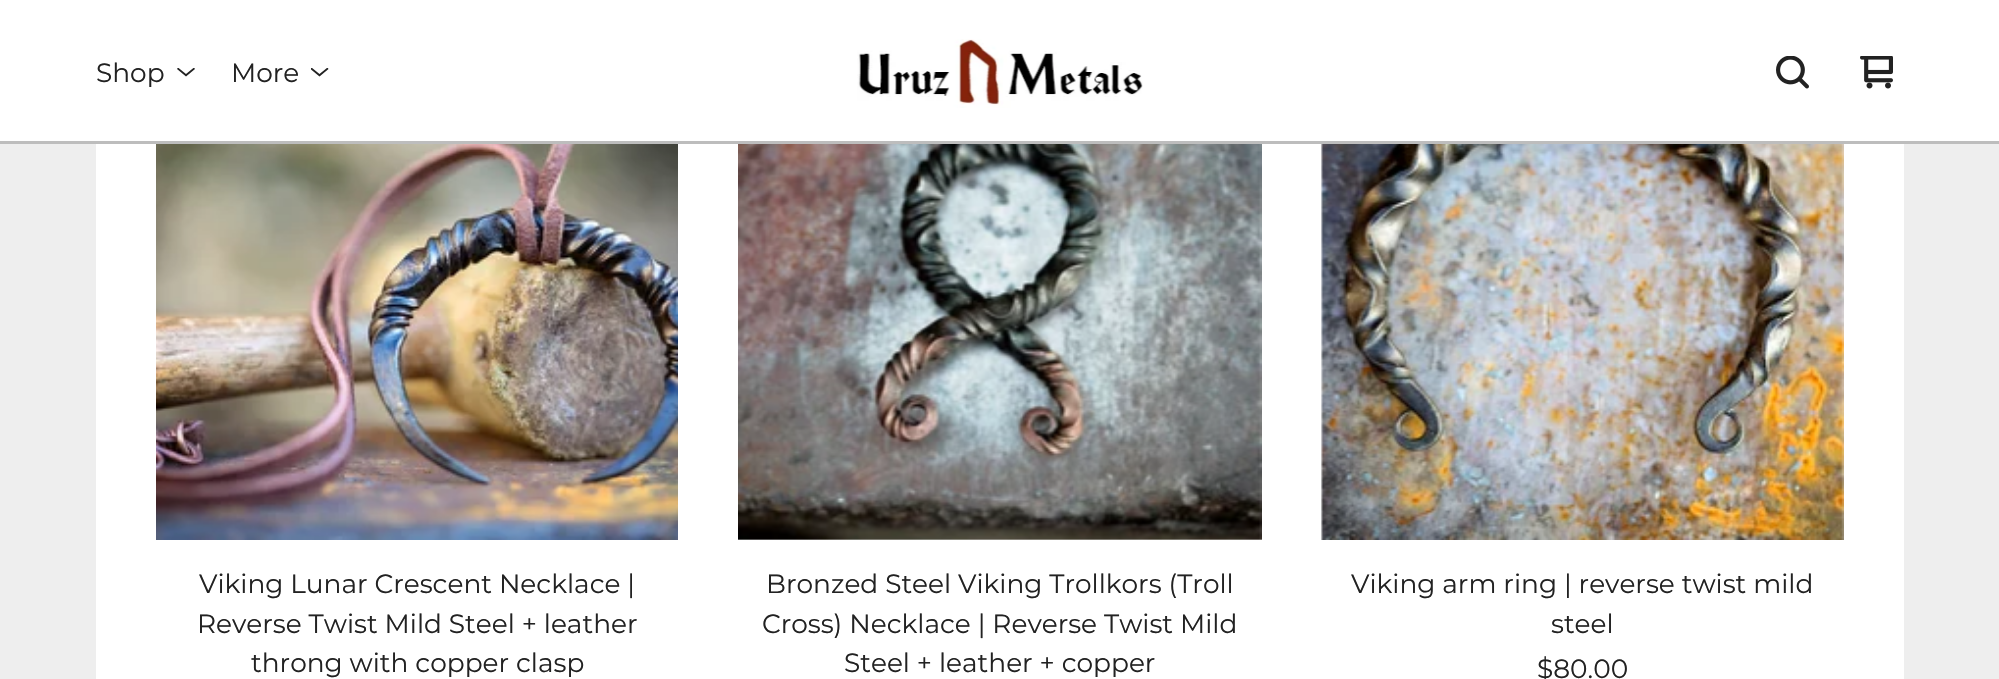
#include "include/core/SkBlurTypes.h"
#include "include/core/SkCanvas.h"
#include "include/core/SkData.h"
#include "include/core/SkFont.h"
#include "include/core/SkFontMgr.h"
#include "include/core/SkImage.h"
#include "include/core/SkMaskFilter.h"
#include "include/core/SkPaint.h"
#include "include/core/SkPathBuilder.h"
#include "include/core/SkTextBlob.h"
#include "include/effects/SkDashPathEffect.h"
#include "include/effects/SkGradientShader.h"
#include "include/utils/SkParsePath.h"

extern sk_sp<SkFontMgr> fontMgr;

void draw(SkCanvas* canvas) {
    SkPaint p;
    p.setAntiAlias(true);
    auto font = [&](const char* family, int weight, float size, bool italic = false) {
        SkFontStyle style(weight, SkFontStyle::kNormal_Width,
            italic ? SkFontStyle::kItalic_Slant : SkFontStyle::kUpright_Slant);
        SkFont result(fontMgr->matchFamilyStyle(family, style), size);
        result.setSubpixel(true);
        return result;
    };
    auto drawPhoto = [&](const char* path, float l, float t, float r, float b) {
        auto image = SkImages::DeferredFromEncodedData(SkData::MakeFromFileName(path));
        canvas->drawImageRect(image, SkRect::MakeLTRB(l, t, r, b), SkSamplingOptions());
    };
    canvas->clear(0xFFEEEEEE);
    p.setColor(0xFFFFFFFF);
    canvas->drawRect(SkRect::MakeLTRB(0, 0, 1999, 141), p);
    p.setColor(0xFFBDBDBD);
    canvas->drawRect(SkRect::MakeLTRB(0, 141, 1999, 144), p);
    auto font1 = font("Montserrat", 400, 26.4f);
    p.setColor(0xFF222222);
    canvas->drawString("Shop", 96, 82, font1, p);
    canvas->save();
    canvas->clipRect(SkRect::MakeLTRB(177, 68, 195, 77));
    canvas->drawPath(SkPathBuilder().moveTo(195, 69).lineTo(186, 76.5f).lineTo(177, 69).lineTo(178, 67.5f).lineTo(186, 74).lineTo(194, 67.5f).close().detach(), p);
    canvas->restore();
    canvas->drawString("More", 231, 82, font1, p);
    canvas->save();
    canvas->clipRect(SkRect::MakeLTRB(311, 68, 329, 77));
    canvas->drawPath(SkPathBuilder().moveTo(328.5f, 69).lineTo(319.5f, 76.5f).lineTo(310.5f, 69).lineTo(311.5f, 67.5f).lineTo(319.5f, 74).lineTo(327.5f, 67.5f).close().detach(), p);
    canvas->restore();
    drawPhoto("media/1.png", 857, 39, 1143, 108);
    drawPhoto("media/2.png", 1776, 56, 1809, 89);
    drawPhoto("media/3.png", 1860, 56, 1893, 89);
    p.setColor(0xFFFFFFFF);
    canvas->drawRect(SkRect::MakeLTRB(96, 144, 1904, 679), p);
    drawPhoto("media/4.png", 156, 144, 678, 540);
    p.setColor(0xFF222222);
    {
        const struct { const char* s; float x, y; } items[] = {
            {"Viking Lunar Crescent Necklace |", 199, 593},
            {"Reverse Twist Mild Steel + leather", 197, 633},
            {"throng with copper clasp", 251, 672},
        };
        for (auto [s, x, y] : items) {
            canvas->drawString(s, x, y, font1, p);
        }
    }
    drawPhoto("media/5.png", 738, 144, 1262, 540);
    {
        const struct { const char* s; float x, y; } items[] = {
            {"Bronzed Steel Viking Trollkors (Troll", 766, 593},
            {"Cross) Necklace | Reverse Twist Mild", 762, 633},
            {"Steel + leather + copper", 844, 672},
        };
        for (auto [s, x, y] : items) {
            canvas->drawString(s, x, y, font1, p);
        }
    }
    drawPhoto("media/6.png", 1321, 144, 1844, 540);
    {
        const struct { const char* s; float x, y; } items[] = {
            {"Viking arm ring | reverse twist mild", 1351, 593},
            {"steel", 1551, 633},
            {"$80.00", 1537, 678},
        };
        for (auto [s, x, y] : items) {
            canvas->drawString(s, x, y, font1, p);
        }
    }
}
